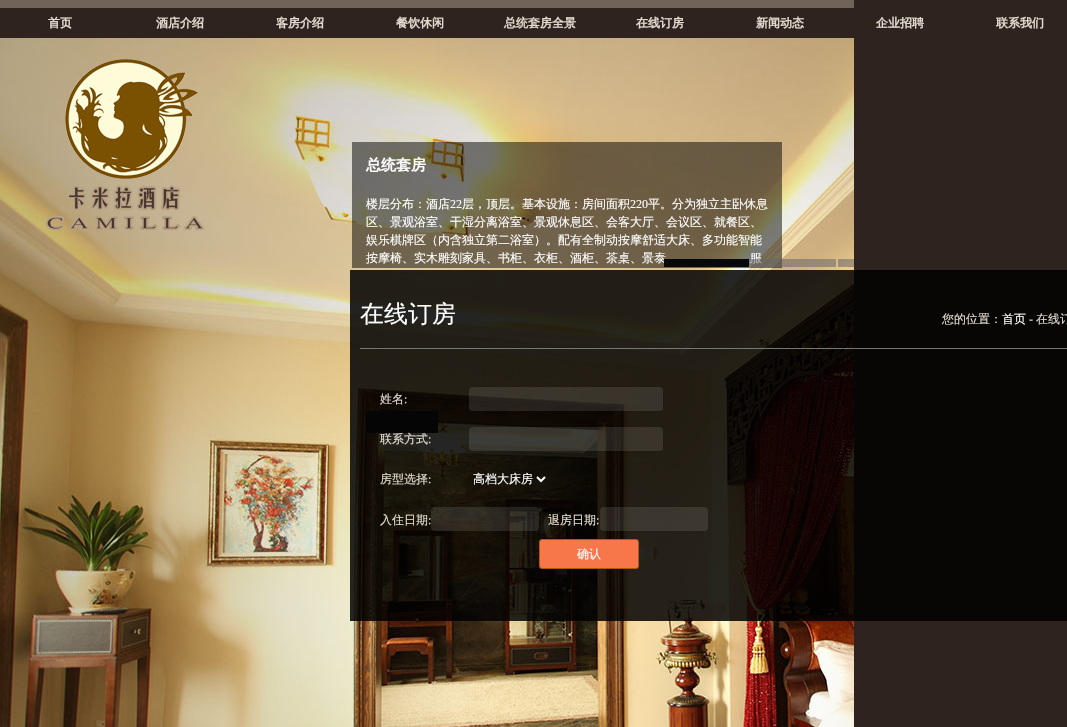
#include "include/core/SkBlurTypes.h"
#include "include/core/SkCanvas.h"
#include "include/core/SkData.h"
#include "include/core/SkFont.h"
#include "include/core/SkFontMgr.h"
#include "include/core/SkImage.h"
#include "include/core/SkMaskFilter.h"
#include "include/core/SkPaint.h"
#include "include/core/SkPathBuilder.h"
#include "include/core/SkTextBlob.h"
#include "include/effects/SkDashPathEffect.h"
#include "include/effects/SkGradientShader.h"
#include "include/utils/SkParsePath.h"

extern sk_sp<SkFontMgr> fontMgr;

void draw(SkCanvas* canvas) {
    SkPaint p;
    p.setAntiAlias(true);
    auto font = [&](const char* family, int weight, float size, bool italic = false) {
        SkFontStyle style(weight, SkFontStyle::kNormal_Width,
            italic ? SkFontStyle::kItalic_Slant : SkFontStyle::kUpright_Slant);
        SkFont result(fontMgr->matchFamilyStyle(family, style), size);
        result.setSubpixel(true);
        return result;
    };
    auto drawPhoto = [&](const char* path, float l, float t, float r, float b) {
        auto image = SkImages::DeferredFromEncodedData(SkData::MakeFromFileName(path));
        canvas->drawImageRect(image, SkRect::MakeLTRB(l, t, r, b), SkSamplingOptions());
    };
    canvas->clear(0xFF2E231F);
    p.setColor(0xFF726358);
    canvas->drawRect(SkRect::MakeLTRB(0, 0, 854, 8), p);
    auto font1 = font("WenQuanYi Zen Hei", 700, 12);
    p.setColor(0xFFE2DBCF);
    {
        const struct { const char* s; float x, y; } items[] = {
            {"首页", 48, 27},
            {"酒店介绍", 156, 27},
            {"客房介绍", 276, 27},
            {"餐饮休闲", 396, 27},
            {"总统套房全景", 504, 27},
            {"在线订房", 636, 27},
            {"新闻动态", 756, 27},
            {"企业招聘", 876, 27},
            {"联系我们", 996, 27},
        };
        for (auto [s, x, y] : items) {
            canvas->drawString(s, x, y, font1, p);
        }
    }
    drawPhoto("media/2.png", 0, 38, 854, 727);
    drawPhoto("media/1.png", 45, 59, 204, 231);
    p.setColor(0x80000000);
    canvas->drawRect(SkRect::MakeLTRB(352, 142, 782, 268), p);
    auto font2 = font("WenQuanYi Zen Hei", 700, 15);
    p.setColor(0xFFFFFFFF);
    canvas->drawString("总统套房", 366, 170, font2, p);
    auto font3 = font("WenQuanYi Zen Hei", 500, 12);
    canvas->drawString("楼层分布：酒店", 366, 208, font3, p);
    auto font4 = font("Liberation Serif", 400, 12);
    canvas->drawString("22", 450, 208, font4, p);
    canvas->drawString("层，顶层。基本设施：房间面积", 462, 208, font3, p);
    canvas->drawString("220", 630, 208, font4, p);
    {
        const struct { const char* s; float x, y; } items[] = {
            {"平。分为独立主卧休息", 648, 208},
            {"区、景观浴室、干湿分离浴室、景观休息区、会客大厅、会议区、就餐区、", 366, 226},
            {"娱乐棋牌区（内含独立第二浴室）。配有全制动按摩舒适大床、多功能智能", 366, 244},
            {"按摩椅、实木雕刻家具、书柜、衣柜、酒柜、茶桌、景泰", 366, 262},
            {"服", 750, 262},
        };
        for (auto [s, x, y] : items) {
            canvas->drawString(s, x, y, font3, p);
        }
    }
    {
        const struct { float l, t, r, b; SkColor color; } items[] = {
            {366, 411, 438, 433, 0xFF231F1E},
            {664, 259, 749, 267, 0xFF090909},
            {751, 259, 836, 267, 0x8C666666},
            {838, 259, 854, 267, 0x8C666666},
            {350, 270, 1067, 621, 0xD9000000},
            {360, 348, 1067, 349, 0xFF767676},
        };
        for (auto [l, t, r, b, color] : items) {
            p.setColor(color);
            canvas->drawRect(SkRect::MakeLTRB(l, t, r, b), p);
        }
    }
    auto font5 = font("WenQuanYi Zen Hei", 500, 24);
    p.setColor(0xFFFFFFFF);
    canvas->drawString("在线订房", 360, 322, font5, p);
    p.setColor(0xFFE2DBCF);
    canvas->drawString("您的位置：", 942, 323, font3, p);
    p.setColor(0xFFFFFFFF);
    canvas->drawString("首页", 1002, 323, font3, p);
    p.setColor(0xFFE2DBCF);
    canvas->drawString("-", 1029, 323, font4, p);
    canvas->drawString("在线订", 1036, 323, font3, p);
    canvas->drawString("姓名", 380, 403, font3, p);
    canvas->drawString(":", 404, 403, font4, p);
    p.setColor(0x1AFFFFFF);
    canvas->drawRoundRect(SkRect::MakeLTRB(469, 387, 663, 411), 4, 4, p);
    p.setColor(0xFFE2DBCF);
    canvas->drawString("联系方式", 380, 443, font3, p);
    canvas->drawString(":", 428, 443, font4, p);
    p.setColor(0x1AFFFFFF);
    canvas->drawRoundRect(SkRect::MakeLTRB(469, 427, 663, 451), 4, 4, p);
    p.setColor(0xFFE2DBCF);
    canvas->drawString("房型选择", 380, 483, font3, p);
    canvas->drawString(":", 428, 483, font4, p);
    p.setStyle(SkPaint::kStroke_Style);
    p.setStrokeWidth(2);
    p.setColor(0xFFFFFFFF);
    canvas->drawPath(SkPathBuilder().moveTo(537, 477).lineTo(541, 481).lineTo(545, 477).detach(), p);
    p.setStyle(SkPaint::kFill_Style);
    canvas->drawString("高档大床房", 473, 483, font3, p);
    p.setColor(0xFFE2DBCF);
    canvas->drawString("入住日期", 380, 524, font3, p);
    canvas->drawString(":", 428, 524, font4, p);
    p.setColor(0x1AFFFFFF);
    canvas->drawRoundRect(SkRect::MakeLTRB(431, 507, 539, 531), 4, 4, p);
    p.setColor(0xFFE2DBCF);
    canvas->drawString("退房日期", 548, 524, font3, p);
    canvas->drawString(":", 596, 524, font4, p);
    p.setColor(0x1AFFFFFF);
    canvas->drawRoundRect(SkRect::MakeLTRB(600, 507, 708, 531), 4, 4, p);
    p.setColor(0xFFF7774A);
    canvas->drawRoundRect(SkRect::MakeLTRB(539.5f, 539.5f, 638.5f, 568.5f), 2.5f, 2.5f, p);
    p.setStyle(SkPaint::kStroke_Style);
    p.setStrokeWidth(1);
    p.setColor(0xFFB15801);
    canvas->drawRoundRect(SkRect::MakeLTRB(539.5f, 539.5f, 638.5f, 568.5f), 2.5f, 2.5f, p);
    p.setStyle(SkPaint::kFill_Style);
    p.setColor(0xFFFFFFFF);
    canvas->drawString("确认", 577, 558, font3, p);
}
